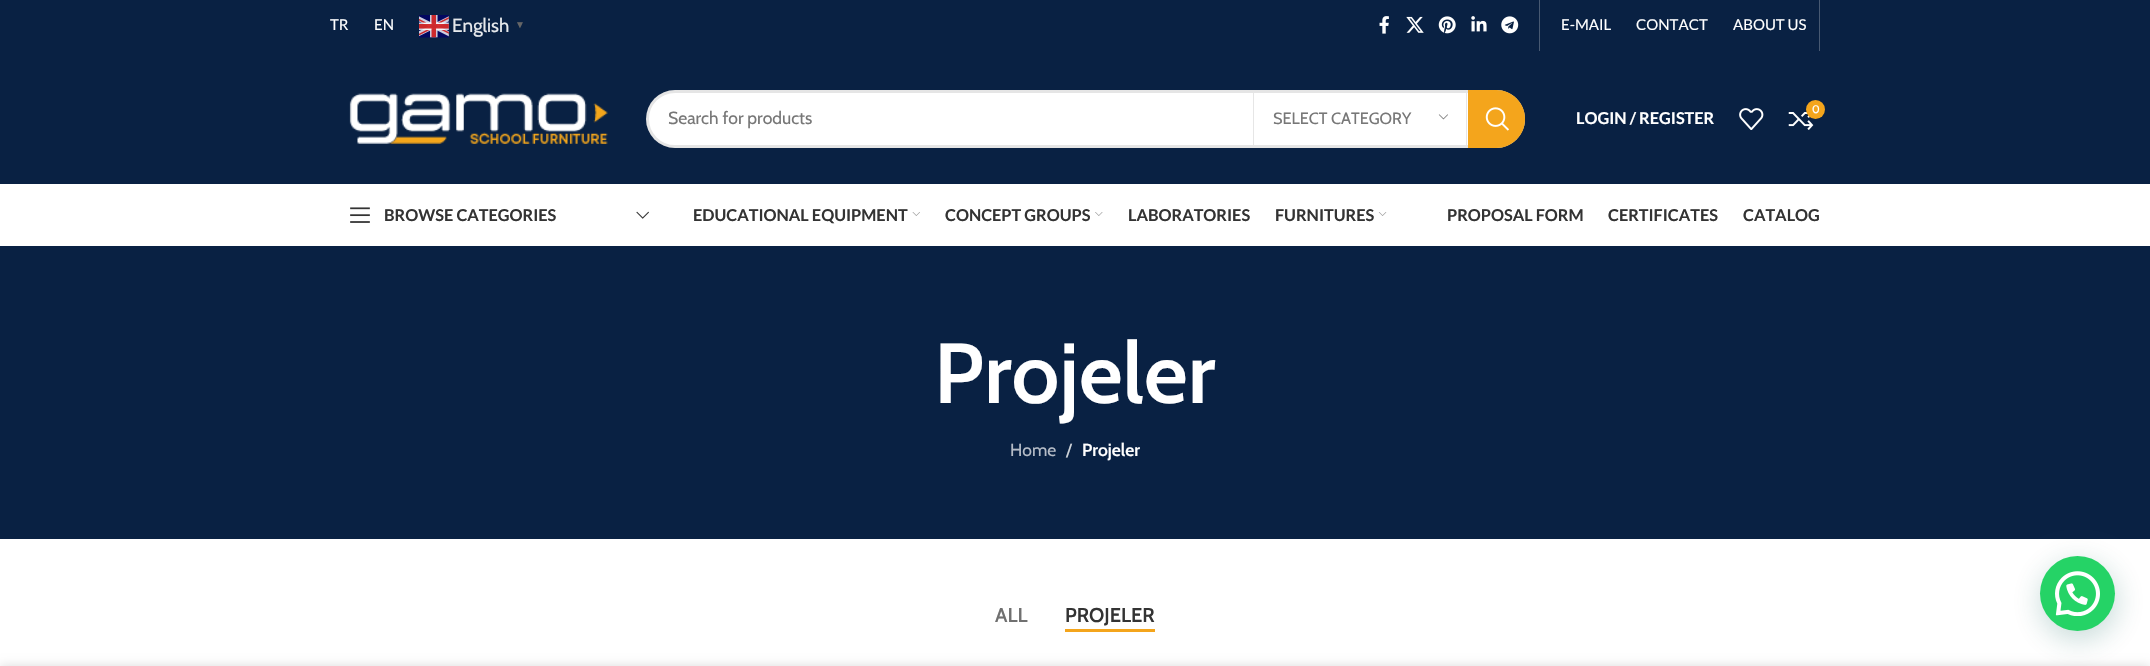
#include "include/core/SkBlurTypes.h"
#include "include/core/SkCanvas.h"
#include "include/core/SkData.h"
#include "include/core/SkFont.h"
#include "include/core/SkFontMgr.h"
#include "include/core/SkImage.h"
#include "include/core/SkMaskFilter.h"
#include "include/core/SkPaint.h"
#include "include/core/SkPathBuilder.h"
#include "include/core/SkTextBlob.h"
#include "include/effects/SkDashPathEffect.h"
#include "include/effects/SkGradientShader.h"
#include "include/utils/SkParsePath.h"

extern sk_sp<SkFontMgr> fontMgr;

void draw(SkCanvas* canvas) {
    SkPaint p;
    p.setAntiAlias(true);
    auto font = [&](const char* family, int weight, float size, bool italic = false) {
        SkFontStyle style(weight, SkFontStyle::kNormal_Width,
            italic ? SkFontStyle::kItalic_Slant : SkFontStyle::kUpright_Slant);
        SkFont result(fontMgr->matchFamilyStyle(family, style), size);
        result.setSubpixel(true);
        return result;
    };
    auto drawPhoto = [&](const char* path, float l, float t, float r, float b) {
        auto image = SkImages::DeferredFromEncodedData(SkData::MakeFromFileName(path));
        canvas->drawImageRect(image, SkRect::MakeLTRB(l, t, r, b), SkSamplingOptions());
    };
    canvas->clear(0xFFFFFFFF);
    p.setColor(0xFF092143);
    canvas->drawRect(SkRect::MakeLTRB(0, 0, 2150, 184), p);
    auto font1 = font("Lato", 400, 15);
    p.setColor(0xFFFFFFFF);
    canvas->drawString("TR", 330, 30, font1, p);
    canvas->drawString("EN", 374, 30, font1, p);
    drawPhoto("media/1.png", 419, 15, 449, 38);
    auto font2 = font("Cabin", 400, 19);
    p.setColor(0xFFE6E9EC);
    canvas->drawString("English", 452, 32, font2, p);
    auto font3 = font("Liberation Sans", 700, 10);
    p.setColor(0xFF666666);
    canvas->drawString("▼", 515, 28, font3, p);
    drawPhoto("media/2.png", 1379, 16, 1389, 34);
    drawPhoto("media/3.png", 1406, 16, 1424, 33);
    drawPhoto("media/4.png", 1438, 16, 1456, 34);
    drawPhoto("media/5.png", 1471, 16, 1487, 32);
    drawPhoto("media/6.png", 1501, 16, 1519, 34);
    p.setColor(0xFF475972);
    canvas->drawRect(SkRect::MakeLTRB(1539, 0, 1540, 51), p);
    p.setColor(0xFFFFFFFF);
    {
        const struct { const char* s; float x, y; } items[] = {
            {"E-MAIL", 1561, 30},
            {"CONTACT", 1636, 30},
            {"ABOUT US", 1733, 30},
        };
        for (auto [s, x, y] : items) {
            canvas->drawString(s, x, y, font1, p);
        }
    }
    p.setColor(0xFF475972);
    canvas->drawRect(SkRect::MakeLTRB(1819, 0, 1820, 51), p);
    drawPhoto("media/7.png", 349, 93, 608, 144);
    p.setColor(0xFFFFFFFF);
    canvas->drawRoundRect(SkRect::MakeLTRB(646, 90, 1525, 148), 29, 29, p);
    p.setStyle(SkPaint::kStroke_Style);
    p.setStrokeWidth(3);
    p.setColor(0x1A000000);
    canvas->drawRoundRect(SkRect::MakeLTRB(647.5f, 91.5f, 1523.5f, 146.5f), 27.5f, 27.5f, p);
    auto font4 = font("Cabin", 400, 17.5f);
    p.setStyle(SkPaint::kFill_Style);
    p.setColor(0xFF777777);
    canvas->drawString("Search for products", 668, 124, font4, p);
    p.setColor(0xFFE6E6E6);
    canvas->drawRect(SkRect::MakeLTRB(1466, 93, 1467, 145), p);
    canvas->drawRect(SkRect::MakeLTRB(1253, 93, 1254, 145), p);
    auto font5 = font("Cabin", 400, 16.25f);
    p.setColor(0xFF777777);
    canvas->drawString("SELECT CATEGORY", 1273, 124, font5, p);
    drawPhoto("media/8.png", 1438, 114, 1448, 120);
    p.setColor(0xFFF4A51C);
    canvas->drawPath(SkPathBuilder().moveTo(1468, 90).lineTo(1496.5f, 90).cubicTo(1512, 90, 1525, 103, 1525, 118.5f).lineTo(1525, 119.5f).cubicTo(1525, 135, 1512, 148, 1496.5f, 148).lineTo(1468, 148).close().detach(), p);
    drawPhoto("media/9.png", 1485, 107, 1509, 131);
    auto font6 = font("Lato", 700, 16.25f);
    p.setColor(0xFFFFFFFF);
    canvas->drawString("LOGIN / REGISTER", 1576, 124, font6, p);
    drawPhoto("media/10.png", 1739, 108, 1764, 130);
    drawPhoto("media/11.png", 1788, 112, 1814, 130);
    p.setColor(0xFFF4A51C);
    canvas->drawCircle(1815.5f, 109.5f, 9.5f, p);
    auto font7 = font("Cabin", 400, 11);
    p.setColor(0xFFFFFFFF);
    canvas->drawString("0", 1812, 113, font7, p);
    drawPhoto("media/12.png", 350, 207, 370, 223);
    p.setColor(0xFF333333);
    canvas->drawString("BROWSE CATEGORIES", 384, 221, font6, p);
    drawPhoto("media/13.png", 636, 211, 649, 219);
    canvas->drawString("EDUCATIONAL EQUIPMENT", 693, 221, font6, p);
    drawPhoto("media/14.png", 912, 212, 920, 216);
    canvas->drawString("CONCEPT GROUPS", 945, 221, font6, p);
    drawPhoto("media/15.png", 1095, 212, 1103, 216);
    canvas->drawString("LABORATORIES", 1128, 221, font6, p);
    canvas->drawString("FURNITURES", 1275, 221, font6, p);
    drawPhoto("media/16.png", 1378, 212, 1387, 216);
    {
        const struct { const char* s; float x, y; } items[] = {
            {"PROPOSAL FORM", 1447, 221},
            {"CERTIFICATES", 1608, 221},
            {"CATALOG", 1743, 221},
        };
        for (auto [s, x, y] : items) {
            canvas->drawString(s, x, y, font6, p);
        }
    }
    p.setColor(0xFF092143);
    canvas->drawRect(SkRect::MakeLTRB(0, 246, 2150, 539), p);
    auto font8 = font("Cabin", 600, 85);
    p.setColor(0xFFFFFFFF);
    canvas->drawString("Projeler", 934, 403, font8, p);
    p.setColor(0xFFB5BCC7);
    canvas->drawString("Home", 1010, 456, font4, p);
    p.setColor(0xFFCED3D9);
    canvas->drawString("/", 1066, 456, font4, p);
    auto font9 = font("Cabin", 600, 17.5f);
    p.setColor(0xFFFFFFFF);
    canvas->drawString("Projeler", 1082, 456, font9, p);
    auto font10 = font("Cabin", 600, 20);
    p.setColor(0xFF707070);
    canvas->drawString("ALL", 995, 622, font10, p);
    p.setColor(0xFF333333);
    canvas->drawString("PROJELER", 1065, 622, font10, p);
    p.setColor(0xFFF4A51C);
    canvas->drawRect(SkRect::MakeLTRB(1065, 629, 1155, 632), p);
    p.setColor(0x3D075E54);
    p.setMaskFilter(SkMaskFilter::MakeBlur(kNormal_SkBlurStyle, 15));
    canvas->drawRoundRect(SkRect::MakeLTRB(2041, 564, 2116, 639), 37.5f, 37.5f, p);
    p.setMaskFilter(nullptr);
    p.setColor(0xFF25D366);
    canvas->drawCircle(2077.5f, 593.5f, 37.5f, p);
    drawPhoto("media/17.png", 2055, 571, 2100, 616);
    p.setColor(0x24000000);
    p.setMaskFilter(SkMaskFilter::MakeBlur(kNormal_SkBlurStyle, 5.5f));
    canvas->drawRect(SkRect::MakeLTRB(0, 666, 2150, 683), p);
    p.setMaskFilter(nullptr);
}
